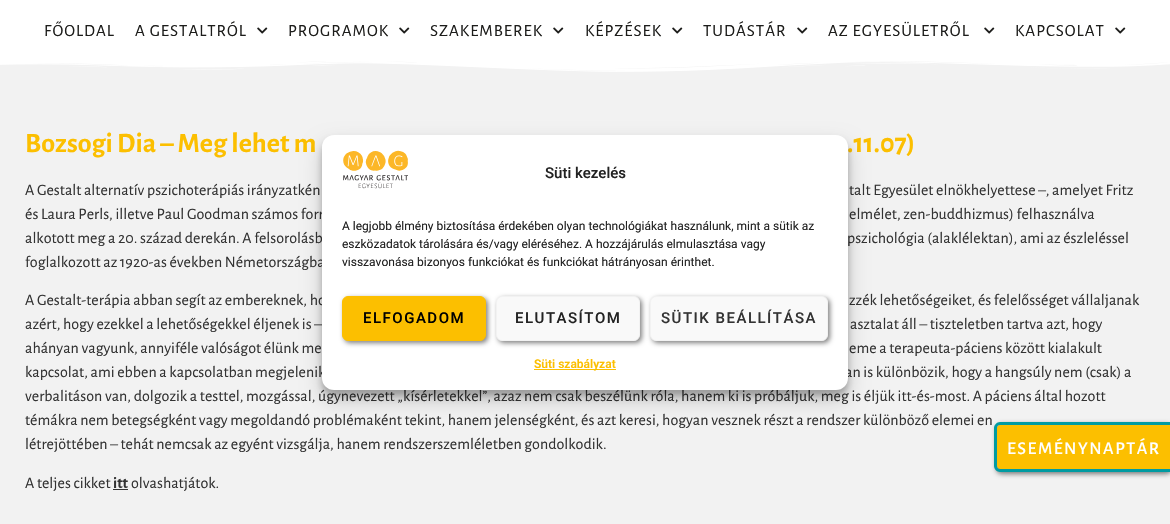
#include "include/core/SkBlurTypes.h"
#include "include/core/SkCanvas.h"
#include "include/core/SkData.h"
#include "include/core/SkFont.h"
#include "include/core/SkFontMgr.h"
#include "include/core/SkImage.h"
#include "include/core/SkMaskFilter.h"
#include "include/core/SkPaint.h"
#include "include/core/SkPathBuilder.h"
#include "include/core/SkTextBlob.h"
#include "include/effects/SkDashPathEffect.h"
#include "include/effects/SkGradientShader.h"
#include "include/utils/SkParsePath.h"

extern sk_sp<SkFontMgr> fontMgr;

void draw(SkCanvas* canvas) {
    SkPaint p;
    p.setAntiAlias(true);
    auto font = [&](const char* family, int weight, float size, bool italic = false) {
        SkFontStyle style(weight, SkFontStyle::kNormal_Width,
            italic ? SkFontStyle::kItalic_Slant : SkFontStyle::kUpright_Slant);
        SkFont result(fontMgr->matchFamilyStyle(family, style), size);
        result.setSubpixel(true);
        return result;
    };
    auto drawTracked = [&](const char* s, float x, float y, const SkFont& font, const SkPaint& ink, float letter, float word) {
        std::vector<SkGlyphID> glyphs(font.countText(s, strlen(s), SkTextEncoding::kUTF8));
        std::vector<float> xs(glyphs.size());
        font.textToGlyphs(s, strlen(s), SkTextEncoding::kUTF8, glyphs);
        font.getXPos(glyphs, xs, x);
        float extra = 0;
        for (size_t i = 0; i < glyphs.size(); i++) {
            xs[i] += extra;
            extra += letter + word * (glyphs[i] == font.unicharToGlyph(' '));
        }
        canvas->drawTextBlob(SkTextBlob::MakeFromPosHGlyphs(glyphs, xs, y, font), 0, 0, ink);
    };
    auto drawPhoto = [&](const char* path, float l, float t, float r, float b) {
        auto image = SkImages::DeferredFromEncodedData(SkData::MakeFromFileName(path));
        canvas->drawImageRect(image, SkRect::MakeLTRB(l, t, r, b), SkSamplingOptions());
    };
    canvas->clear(0xFFF2F2F2);
    p.setColor(0xFFFFFFFF);
    canvas->drawRect(SkRect::MakeLTRB(0, 0, 1170, 60), p);
    auto font1 = font("Alegreya Sans", 400, 17);
    p.setColor(0xFF1D1D1B);
    drawTracked("FŐOLDAL", 44, 36, font1, p, 1, 0);
    drawTracked("A GESTALTRÓL", 135, 36, font1, p, 1, 0);
    drawPhoto("media/1.png", 257, 27, 268, 34);
    drawTracked("PROGRAMOK", 288, 36, font1, p, 1, 0);
    drawPhoto("media/1.png", 399, 27, 410, 34);
    drawTracked("SZAKEMBEREK", 430, 36, font1, p, 1, 0);
    drawPhoto("media/1.png", 553, 27, 564, 34);
    drawTracked("KÉPZÉSEK", 585, 36, font1, p, 1, 0);
    drawPhoto("media/1.png", 672, 27, 683, 34);
    drawTracked("TUDÁSTÁR", 703, 36, font1, p, 1, 0);
    drawPhoto("media/1.png", 797, 27, 808, 34);
    drawTracked("AZ EGYESÜLETRŐL", 828, 36, font1, p, 1, 0);
    drawPhoto("media/1.png", 984, 27, 995, 34);
    drawTracked("KAPCSOLAT", 1015, 36, font1, p, 1, 0);
    drawPhoto("media/1.png", 1115, 27, 1126, 34);
    p.setColor(0x80000000);
    p.setMaskFilter(SkMaskFilter::MakeBlur(kNormal_SkBlurStyle, 2.5f));
    canvas->drawRoundRect(SkRect::MakeLTRB(996, 424, 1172, 474), 6, 6, p);
    p.setMaskFilter(nullptr);
    p.setColor(0xFFFCBF00);
    canvas->drawPath(SkPathBuilder().moveTo(1000, 425).lineTo(1170, 425).lineTo(1170, 469).lineTo(1000, 469).cubicTo(998.5f, 469, 997, 467.5f, 997, 466).lineTo(997, 428).cubicTo(997, 426.5f, 998.5f, 425, 1000, 425).close().detach(), p);
    p.setColor(0xFF009BA2);
    canvas->drawPath(SkPathBuilder(SkPathFillType::kEvenOdd).moveTo(1000, 422).lineTo(1170, 422).lineTo(1170, 472).lineTo(1000, 472).cubicTo(997, 472, 994, 469, 994, 466).lineTo(994, 428).cubicTo(994, 425, 997, 422, 1000, 422).close().moveTo(1000, 425).lineTo(1170, 425).lineTo(1170, 469).lineTo(1000, 469).cubicTo(998, 469, 997, 468, 997, 466).lineTo(997, 428).cubicTo(997, 426, 998, 425, 1000, 425).close().detach(), p);
    auto font2 = font("Alegreya Sans", 500, 18);
    p.setColor(0xFFFFFFFF);
    drawTracked("ESEMÉNYNAPTÁR", 1007, 454, font2, p, 1.5f, 0);
    drawPhoto("media/2.png", 0, 60, 1170, 72);
    auto font3 = font("Alegreya Sans", 700, 28);
    p.setColor(0xFFFCBF00);
    canvas->drawString("Bozsogi Dia – Meg lehet m", 25, 152, font3, p);
    canvas->drawString(".11.07)", 847, 152, font3, p);
    auto font4 = font("Alegreya Sans", 400, 16);
    p.setColor(0xFF333333);
    {
        const struct { const char* s; float x, y; } items[] = {
            {"A Gestalt alternatív pszichoterápiás irányzatkén", 25, 195},
            {"talt Egyesület elnökhelyettese –, amelyet Fritz", 849, 195},
            {"és Laura Perls, illetve Paul Goodman számos forr", 25, 219},
            {"elmélet, zen-buddhizmus) felhasználva", 849, 219},
            {"alkotott meg a 20. század derekán. A felsorolásb", 25, 243},
            {"pszichológia (alaklélektan), ami az észleléssel", 847, 243},
            {"foglalkozott az 1920-as években Németországba", 25, 267},
            {"A Gestalt-terápia abban segít az embereknek, ho", 25, 305},
            {"zzék lehetőségeiket, és felelősséget vállaljanak", 849, 305},
            {"azért, hogy ezekkel a lehetőségekkel éljenek is –", 25, 329},
            {"asztalat áll – tiszteletben tartva azt, hogy", 850, 329},
            {"ahányan vagyunk, annyiféle valóságot élünk me", 25, 353},
            {"eme a terapeuta-páciens között kialakult", 849, 353},
            {"kapcsolat, ami ebben a kapcsolatban megjelenik", 25, 377},
            {"an is különbözik, hogy a hangsúly nem (csak) a", 845, 377},
            {"verbalitáson van, dolgozik a testtel, mozgással, úgynevezett „kísérletekkel”, azaz nem csak beszélünk róla, hanem ki is próbáljuk, meg is éljük itt-és-most. A páciens által hozott", 25, 401},
            {"témákra nem betegségként vagy megoldandó problémaként tekint, hanem jelenségként, és azt keresi, hogyan vesznek részt a rendszer különböző elemei en", 25, 425},
            {"létrejöttében – tehát nemcsak az egyént vizsgálja, hanem rendszerszemléletben gondolkodik.", 25, 449},
            {"A teljes cikket", 25, 488},
        };
        for (auto [s, x, y] : items) {
            canvas->drawString(s, x, y, font4, p);
        }
    }
    auto font5 = font("Alegreya Sans", 700, 16);
    canvas->drawString("itt", 113, 488, font5, p);
    canvas->drawRect(SkRect::MakeLTRB(113, 489, 128, 490), p);
    canvas->drawString("olvashatjátok.", 131, 488, font4, p);
    p.setColor(0x3B000000);
    p.setMaskFilter(SkMaskFilter::MakeBlur(kNormal_SkBlurStyle, 3));
    canvas->drawRoundRect(SkRect::MakeLTRB(322, 141, 848, 396), 12, 12, p);
    p.setMaskFilter(nullptr);
    p.setColor(0x30000000);
    p.setMaskFilter(SkMaskFilter::MakeBlur(kNormal_SkBlurStyle, 10));
    canvas->drawRoundRect(SkRect::MakeLTRB(322, 145, 848, 400), 12, 12, p);
    p.setMaskFilter(nullptr);
    p.setColor(0xFFFFFFFF);
    canvas->drawRoundRect(SkRect::MakeLTRB(322, 135, 848, 390), 12, 12, p);
    drawPhoto("media/3.png", 343, 150, 408, 189);
    auto font6 = font("Roboto", 500, 15);
    p.setColor(0xFF222222);
    canvas->drawString("Süti kezelés", 545, 178, font6, p);
    auto font7 = font("Roboto", 400, 12);
    {
        const struct { const char* s; float x, y; } items[] = {
            {"A legjobb élmény biztosítása érdekében olyan technológiákat használunk, mint a sütik az", 342, 230},
            {"eszközadatok tárolására és/vagy eléréséhez. A hozzájárulás elmulasztása vagy", 342, 248},
            {"visszavonása bizonyos funkciókat és funkciókat hátrányosan érinthet.", 342, 266},
        };
        for (auto [s, x, y] : items) {
            canvas->drawString(s, x, y, font7, p);
        }
    }
    p.setColor(0x80000000);
    p.setMaskFilter(SkMaskFilter::MakeBlur(kNormal_SkBlurStyle, 2.5f));
    canvas->drawRoundRect(SkRect::MakeLTRB(344, 298, 488, 343), 6, 6, p);
    p.setMaskFilter(nullptr);
    p.setColor(0xFFFCBF00);
    canvas->drawRoundRect(SkRect::MakeLTRB(342.5f, 296.5f, 485.5f, 340.5f), 5.5f, 5.5f, p);
    p.setStyle(SkPaint::kStroke_Style);
    p.setStrokeWidth(1);
    canvas->drawRoundRect(SkRect::MakeLTRB(342.5f, 296.5f, 485.5f, 340.5f), 5.5f, 5.5f, p);
    p.setStyle(SkPaint::kFill_Style);
    p.setColor(0xFF000000);
    drawTracked("ELFOGADOM", 363, 323, font6, p, 1.5f, 0);
    p.setColor(0x80000000);
    p.setMaskFilter(SkMaskFilter::MakeBlur(kNormal_SkBlurStyle, 2.5f));
    canvas->drawRoundRect(SkRect::MakeLTRB(498, 298, 642, 343), 6, 6, p);
    p.setMaskFilter(nullptr);
    p.setColor(0xFFF9F9F9);
    canvas->drawRoundRect(SkRect::MakeLTRB(496.5f, 296.5f, 639.5f, 340.5f), 5.5f, 5.5f, p);
    p.setStyle(SkPaint::kStroke_Style);
    p.setColor(0xFFF2F2F2);
    canvas->drawRoundRect(SkRect::MakeLTRB(496.5f, 296.5f, 639.5f, 340.5f), 5.5f, 5.5f, p);
    p.setStyle(SkPaint::kFill_Style);
    p.setColor(0xFF222222);
    drawTracked("ELUTASÍTOM", 515, 323, font6, p, 1.5f, 0);
    p.setColor(0x80000000);
    p.setMaskFilter(SkMaskFilter::MakeBlur(kNormal_SkBlurStyle, 2.5f));
    canvas->drawRoundRect(SkRect::MakeLTRB(652, 298, 830, 343), 6, 6, p);
    p.setMaskFilter(nullptr);
    p.setColor(0xFFF9F9F9);
    canvas->drawRoundRect(SkRect::MakeLTRB(650.5f, 296.5f, 827.5f, 340.5f), 5.5f, 5.5f, p);
    p.setStyle(SkPaint::kStroke_Style);
    p.setColor(0xFFF2F2F2);
    canvas->drawRoundRect(SkRect::MakeLTRB(650.5f, 296.5f, 827.5f, 340.5f), 5.5f, 5.5f, p);
    p.setStyle(SkPaint::kFill_Style);
    p.setColor(0xFF333333);
    drawTracked("SÜTIK BEÁLLÍTÁSA", 661, 323, font6, p, 1.5f, 0);
    p.setColor(0xFFFCBF00);
    canvas->drawRect(SkRect::MakeLTRB(534, 369, 616, 370), p);
    auto font8 = font("Roboto", 600, 12);
    canvas->drawString("Süti szabályzat", 534, 368, font8, p);
}
